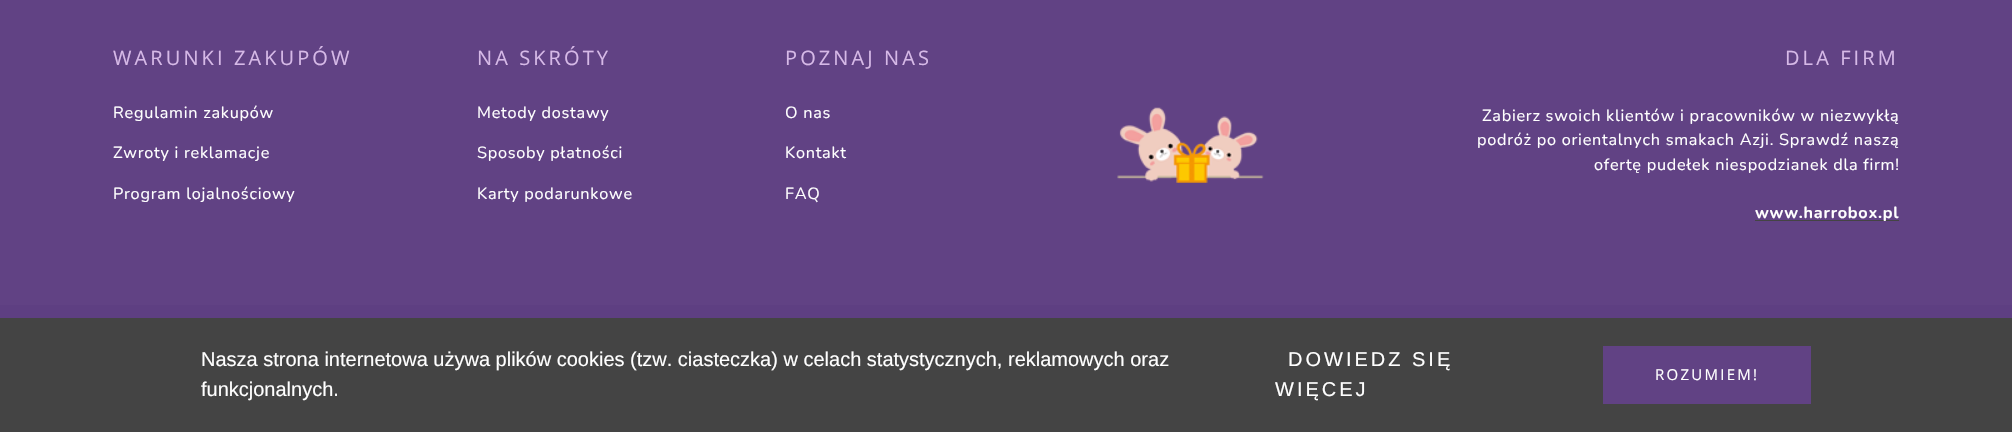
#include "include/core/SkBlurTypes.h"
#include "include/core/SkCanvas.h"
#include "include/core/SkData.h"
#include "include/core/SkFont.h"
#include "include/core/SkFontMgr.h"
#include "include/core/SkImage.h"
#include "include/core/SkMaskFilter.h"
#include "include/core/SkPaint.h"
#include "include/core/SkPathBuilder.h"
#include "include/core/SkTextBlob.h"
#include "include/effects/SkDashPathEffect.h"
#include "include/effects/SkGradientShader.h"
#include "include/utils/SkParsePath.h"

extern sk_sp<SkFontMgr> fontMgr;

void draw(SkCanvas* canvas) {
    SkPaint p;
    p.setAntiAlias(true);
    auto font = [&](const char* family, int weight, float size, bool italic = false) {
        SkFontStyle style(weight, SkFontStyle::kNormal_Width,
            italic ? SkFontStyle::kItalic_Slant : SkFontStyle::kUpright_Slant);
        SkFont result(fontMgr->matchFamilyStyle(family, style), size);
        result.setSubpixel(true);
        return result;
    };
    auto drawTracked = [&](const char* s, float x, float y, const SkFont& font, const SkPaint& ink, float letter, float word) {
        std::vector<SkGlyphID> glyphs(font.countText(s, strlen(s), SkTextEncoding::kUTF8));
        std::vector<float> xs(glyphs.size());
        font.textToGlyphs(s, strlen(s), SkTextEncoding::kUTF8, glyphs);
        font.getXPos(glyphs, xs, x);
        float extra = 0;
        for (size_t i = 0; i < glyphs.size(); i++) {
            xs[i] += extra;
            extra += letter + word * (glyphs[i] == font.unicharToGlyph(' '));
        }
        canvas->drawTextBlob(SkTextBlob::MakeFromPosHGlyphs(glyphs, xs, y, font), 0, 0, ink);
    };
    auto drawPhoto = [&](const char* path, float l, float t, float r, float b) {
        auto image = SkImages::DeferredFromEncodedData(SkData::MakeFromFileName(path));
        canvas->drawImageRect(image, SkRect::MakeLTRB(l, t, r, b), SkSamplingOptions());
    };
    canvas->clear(0xFF614284);
    auto font1 = font("Open Sans", 400, 20);
    p.setColor(0xFFD6B9E7);
    drawTracked("WARUNKI ZAKUPÓW", 113, 65, font1, p, 3.1f, 0);
    auto font2 = font("Nunito", 200, 16.25f);
    p.setColor(0xFFFFFFFF);
    {
        const struct { const char* s; float x, y; } items[] = {
            {"Regulamin zakupów", 113, 118},
            {"Zwroty i reklamacje", 113, 158},
            {"Program lojalnościowy", 113, 199},
        };
        for (auto [s, x, y] : items) {
            drawTracked(s, x, y, font2, p, 0.75f, 0);
        }
    }
    p.setColor(0xFFD6B9E7);
    drawTracked("NA SKRÓTY", 477, 65, font1, p, 3.1f, 0);
    p.setColor(0xFFFFFFFF);
    {
        const struct { const char* s; float x, y; } items[] = {
            {"Metody dostawy", 477, 118},
            {"Sposoby płatności", 477, 158},
            {"Karty podarunkowe", 477, 199},
        };
        for (auto [s, x, y] : items) {
            drawTracked(s, x, y, font2, p, 0.75f, 0);
        }
    }
    p.setColor(0xFFD6B9E7);
    drawTracked("POZNAJ NAS", 785, 65, font1, p, 3.1f, 0);
    p.setColor(0xFFFFFFFF);
    {
        const struct { const char* s; float x, y; } items[] = {
            {"O nas", 785, 118},
            {"Kontakt", 785, 158},
            {"FAQ", 785, 199},
        };
        for (auto [s, x, y] : items) {
            drawTracked(s, x, y, font2, p, 0.75f, 0);
        }
    }
    drawPhoto("media/1.png", 1117, 107, 1264, 183);
    p.setColor(0xFFD6B9E7);
    drawTracked("DLA FIRM", 1785, 65, font1, p, 3.1f, 0);
    p.setColor(0xFFFFFFFF);
    {
        const struct { const char* s; float x, y; } items[] = {
            {"Zabierz swoich klientów i pracowników w niezwykłą", 1482, 121},
            {"podróż po orientalnych smakach Azji. Sprawdź naszą", 1477, 145},
            {"ofertę pudełek niespodzianek dla firm!", 1594, 170},
        };
        for (auto [s, x, y] : items) {
            drawTracked(s, x, y, font2, p, 0.75f, 0);
        }
    }
    p.setColor(0xFF444444);
    canvas->drawRect(SkRect::MakeLTRB(1755, 220, 1899, 221), p);
    auto font3 = font("Nunito", 700, 16.25f);
    p.setColor(0xFFFFFFFF);
    drawTracked("www.harrobox.pl", 1755, 218, font3, p, 0.75f, 0);
    p.setColor(0xFF5E3F82);
    canvas->drawRect(SkRect::MakeLTRB(0, 305, 2012, 318), p);
    p.setColor(0xFF444444);
    canvas->drawRect(SkRect::MakeLTRB(0, 318, 2012, 432), p);
    auto font4 = font("Liberation Sans", 400, 20);
    p.setColor(0xFFFFFFFF);
    canvas->drawString("Nasza strona internetowa używa plików cookies (tzw. ciasteczka) w celach statystycznych, reklamowych oraz", 201, 366, font4, p);
    canvas->drawString("funkcjonalnych.", 201, 396, font4, p);
    drawTracked("DOWIEDZ SIĘ", 1288, 366, font4, p, 3, 0);
    drawTracked("WIĘCEJ", 1275, 396, font4, p, 3, 0);
    p.setColor(0xFF614284);
    canvas->drawRect(SkRect::MakeLTRB(1603, 346, 1811, 404), p);
    auto font5 = font("Open Sans", 400, 15);
    p.setColor(0xFFFFFFFF);
    drawTracked("ROZUMIEM!", 1655, 380, font5, p, 2.25f, 0);
}
